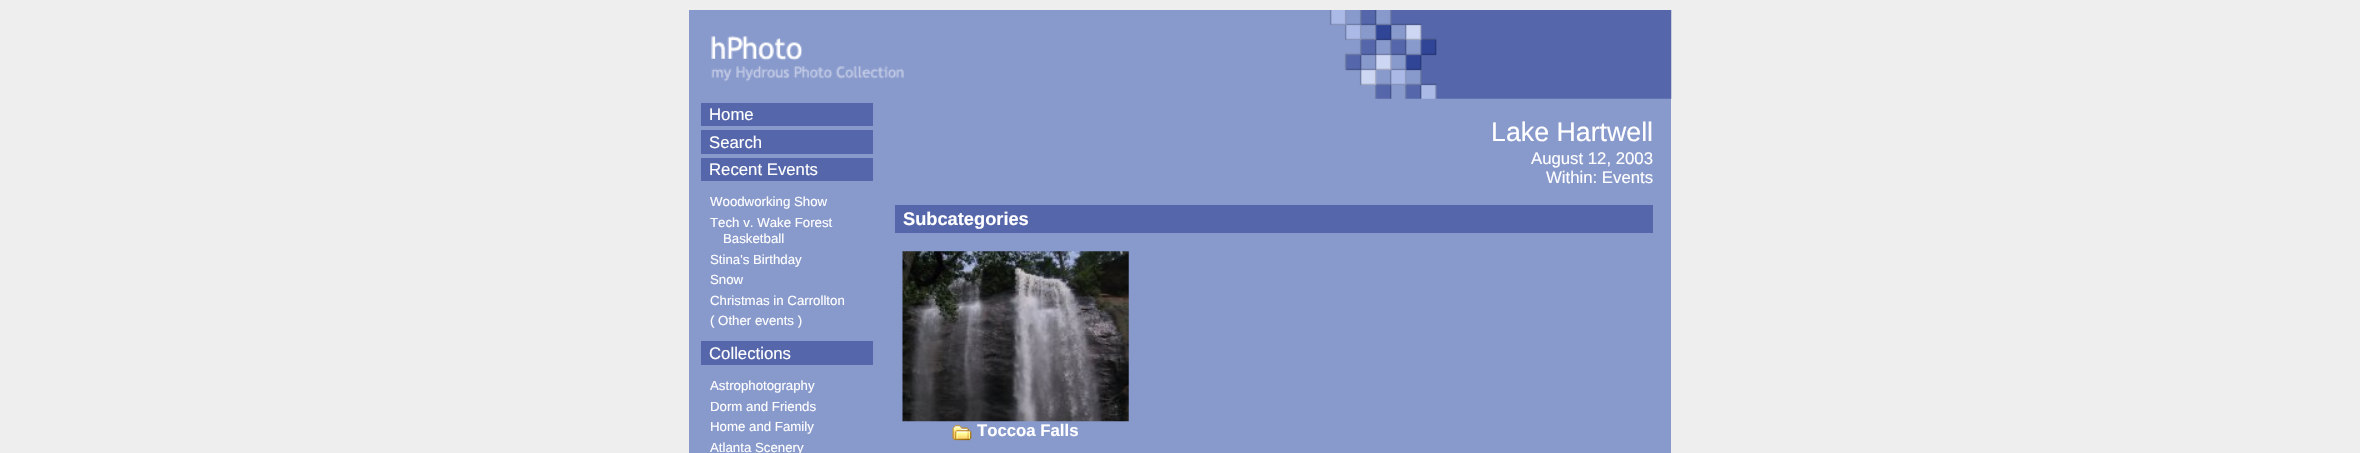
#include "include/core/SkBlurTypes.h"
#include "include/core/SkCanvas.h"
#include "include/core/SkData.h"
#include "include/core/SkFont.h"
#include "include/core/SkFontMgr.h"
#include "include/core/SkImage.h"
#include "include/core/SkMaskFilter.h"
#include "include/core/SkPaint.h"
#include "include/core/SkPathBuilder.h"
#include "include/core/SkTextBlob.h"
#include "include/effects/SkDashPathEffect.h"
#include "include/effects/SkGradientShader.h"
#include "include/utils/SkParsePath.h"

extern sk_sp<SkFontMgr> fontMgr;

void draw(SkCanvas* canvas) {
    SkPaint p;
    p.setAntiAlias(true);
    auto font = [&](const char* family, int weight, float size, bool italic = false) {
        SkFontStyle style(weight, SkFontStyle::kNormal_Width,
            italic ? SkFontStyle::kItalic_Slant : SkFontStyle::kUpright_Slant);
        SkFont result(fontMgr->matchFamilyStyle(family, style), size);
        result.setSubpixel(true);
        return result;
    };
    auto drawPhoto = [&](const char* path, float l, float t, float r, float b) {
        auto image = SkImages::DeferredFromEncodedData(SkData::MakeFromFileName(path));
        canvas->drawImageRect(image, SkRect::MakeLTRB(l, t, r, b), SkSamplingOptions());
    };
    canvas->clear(0xFFEEEEEE);
    p.setColor(0xFF8899CC);
    canvas->drawRect(SkRect::MakeLTRB(689, 10, 1671, 453), p);
    drawPhoto("media/1.png", 711, 10, 1672, 99);
    p.setColor(0xFF5566AA);
    canvas->drawRect(SkRect::MakeLTRB(701, 103, 873, 126), p);
    auto font1 = font("Liberation Sans", 400, 16.75f);
    p.setColor(0xFFFFFFFF);
    canvas->drawString("Home", 709, 120, font1, p);
    p.setColor(0xFF5566AA);
    canvas->drawRect(SkRect::MakeLTRB(701, 130, 873, 154), p);
    p.setColor(0xFFFFFFFF);
    canvas->drawString("Search", 709, 148, font1, p);
    p.setColor(0xFF5566AA);
    canvas->drawRect(SkRect::MakeLTRB(701, 158, 873, 181), p);
    p.setColor(0xFFFFFFFF);
    canvas->drawString("Recent Events", 709, 175, font1, p);
    auto font2 = font("Liberation Sans", 400, 13.25f);
    {
        const struct { const char* s; float x, y; } items[] = {
            {"Woodworking Show", 710, 206},
            {"Tech v. Wake Forest", 710, 227},
            {"Basketball", 723, 243},
            {"Stina's Birthday", 710, 264},
            {"Snow", 710, 284},
            {"Christmas in Carrollton", 710, 305},
            {"( Other events )", 710, 325},
        };
        for (auto [s, x, y] : items) {
            canvas->drawString(s, x, y, font2, p);
        }
    }
    p.setColor(0xFF5566AA);
    canvas->drawRect(SkRect::MakeLTRB(701, 341, 873, 365), p);
    p.setColor(0xFFFFFFFF);
    canvas->drawString("Collections", 709, 359, font1, p);
    {
        const struct { const char* s; float x, y; } items[] = {
            {"Astrophotography", 710, 390},
            {"Dorm and Friends", 710, 411},
            {"Home and Family", 710, 431},
            {"Atlanta Scenery", 710, 452},
        };
        for (auto [s, x, y] : items) {
            canvas->drawString(s, x, y, font2, p);
        }
    }
    auto font3 = font("Liberation Sans", 400, 26.75f);
    canvas->drawString("Lake Hartwell", 1491, 141, font3, p);
    canvas->drawString("August 12, 2003", 1531, 164, font1, p);
    canvas->drawString("Within: Events", 1546, 183, font1, p);
    p.setColor(0xFF5566AA);
    canvas->drawRect(SkRect::MakeLTRB(895, 205, 1653, 233), p);
    auto font4 = font("Liberation Sans", 700, 18.25f);
    p.setColor(0xFFFFFFFF);
    canvas->drawString("Subcategories", 903, 225, font4, p);
    drawPhoto("media/2.png", 902, 251, 1129, 422);
    drawPhoto("media/3.png", 952, 424, 972, 441);
    auto font5 = font("Liberation Sans", 700, 16.75f);
    canvas->drawString("Toccoa Falls", 977, 436, font5, p);
}
